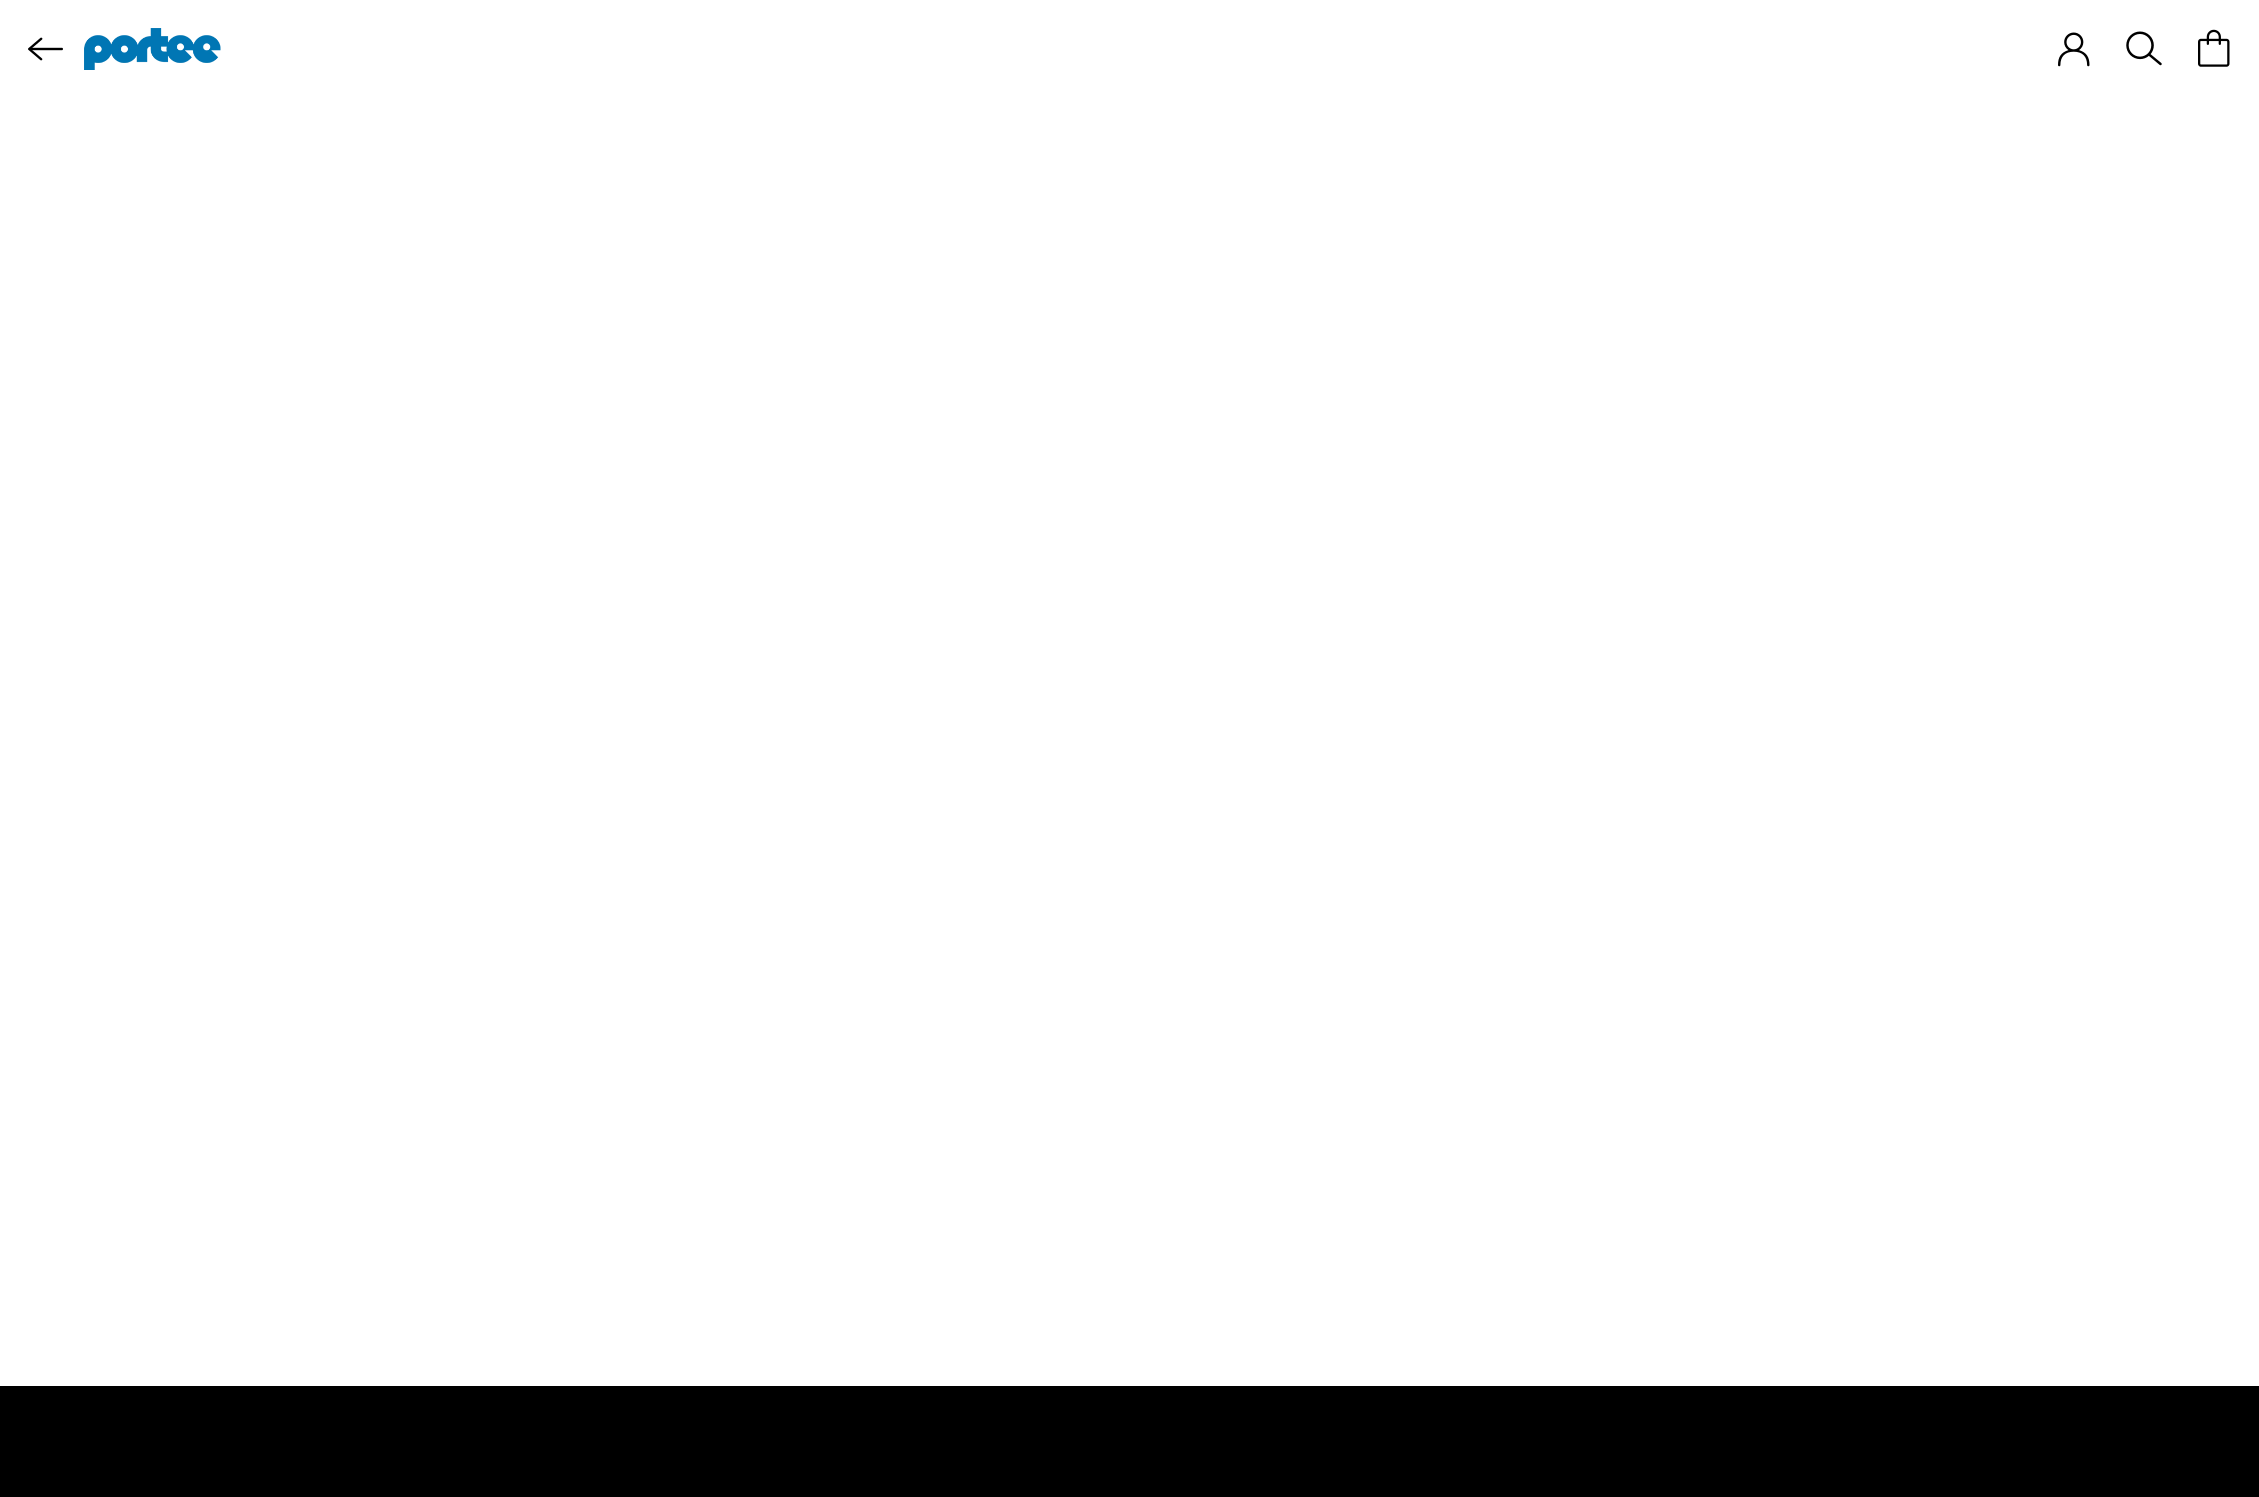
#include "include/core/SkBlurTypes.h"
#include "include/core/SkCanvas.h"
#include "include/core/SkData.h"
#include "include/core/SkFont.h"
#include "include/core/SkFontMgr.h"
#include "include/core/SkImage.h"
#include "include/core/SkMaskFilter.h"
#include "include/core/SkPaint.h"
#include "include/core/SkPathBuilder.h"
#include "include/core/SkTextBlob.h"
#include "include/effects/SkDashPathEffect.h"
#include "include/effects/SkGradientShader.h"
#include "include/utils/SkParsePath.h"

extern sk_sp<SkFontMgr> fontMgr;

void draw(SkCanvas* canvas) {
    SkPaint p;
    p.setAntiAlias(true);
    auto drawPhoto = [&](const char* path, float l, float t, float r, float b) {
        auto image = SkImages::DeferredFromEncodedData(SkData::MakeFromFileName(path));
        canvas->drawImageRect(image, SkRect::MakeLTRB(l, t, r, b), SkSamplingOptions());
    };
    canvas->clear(0xFFFFFFFF);
    drawPhoto("media/1.png", 28, 37, 63, 61);
    drawPhoto("media/2.png", 84, 28, 221, 70);
    drawPhoto("media/3.png", 2058, 32, 2090, 67);
    drawPhoto("media/4.png", 2126, 31, 2162, 66);
    drawPhoto("media/5.png", 2198, 29, 2230, 67);
    p.setColor(0xFF000000);
    canvas->drawRect(SkRect::MakeLTRB(0, 1386, 2259, 1497), p);
}
